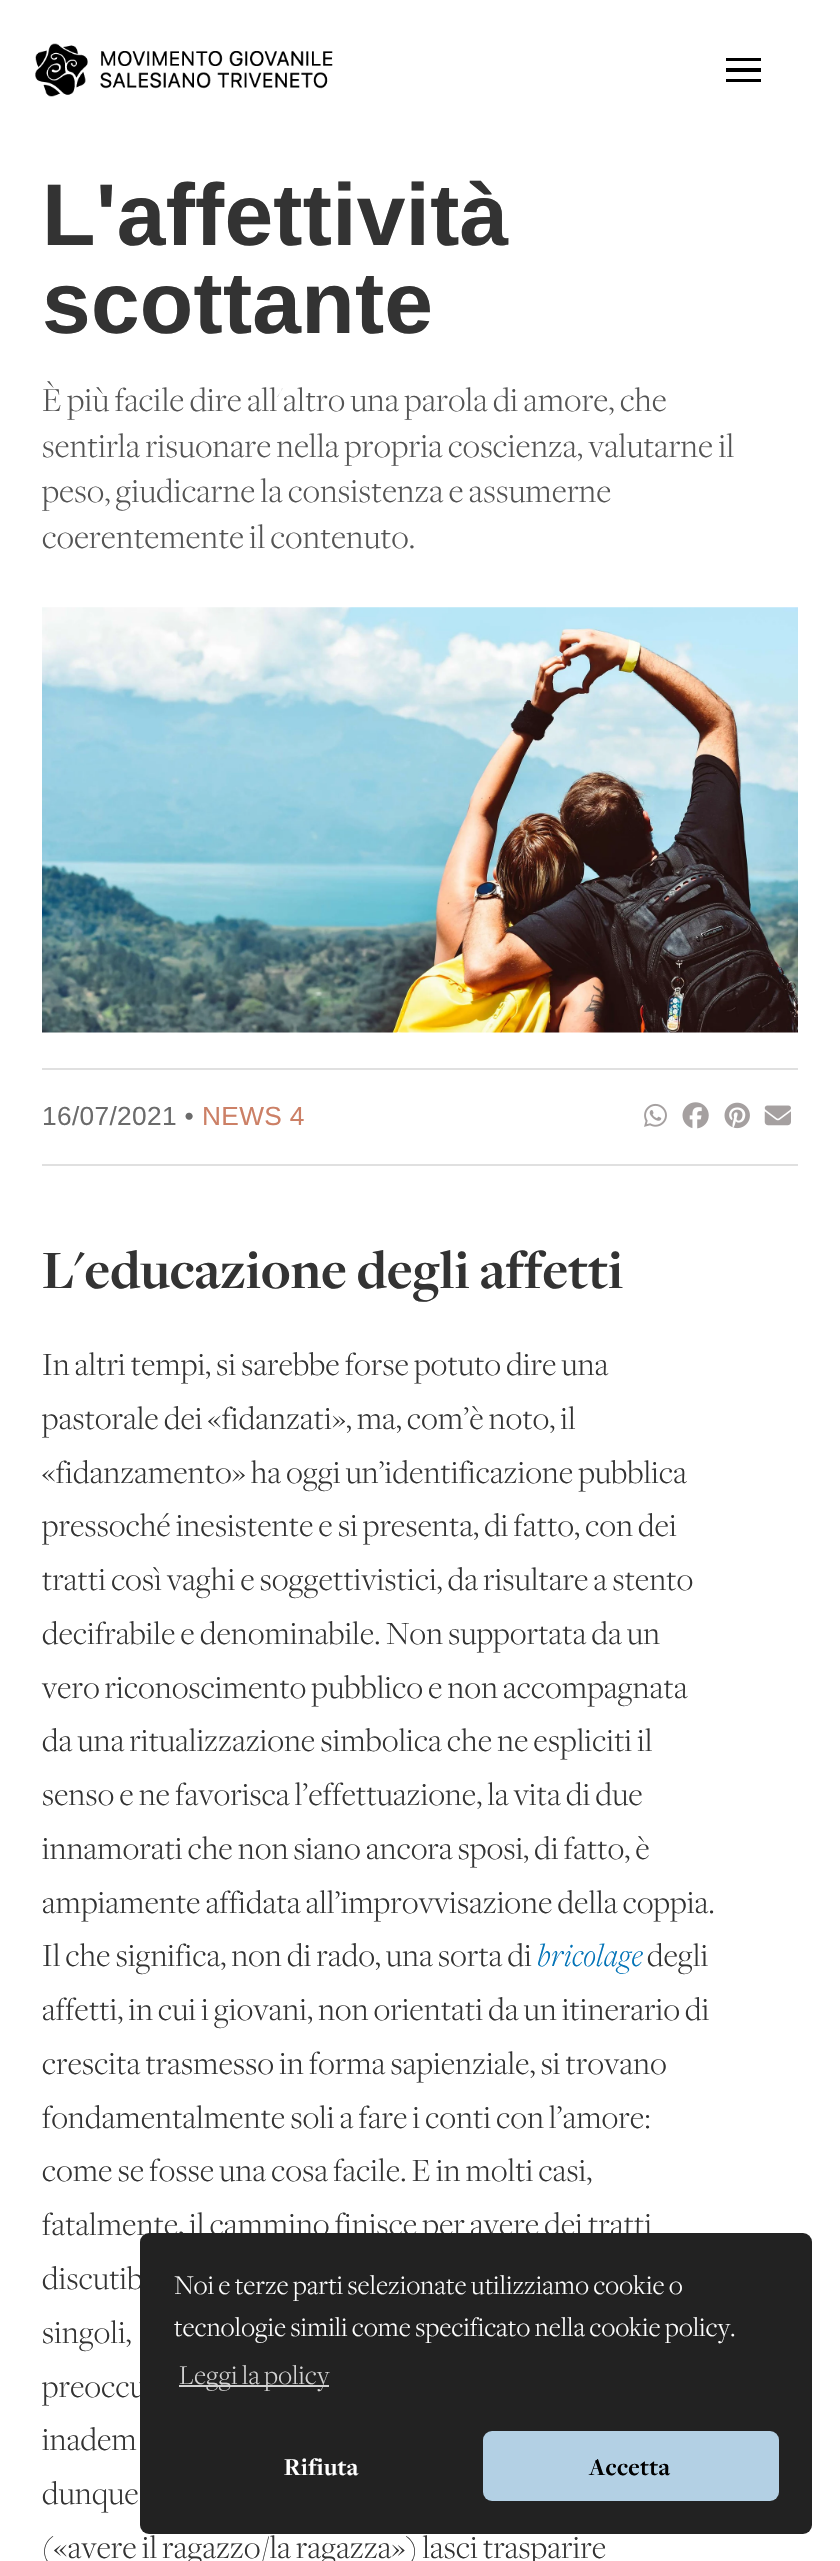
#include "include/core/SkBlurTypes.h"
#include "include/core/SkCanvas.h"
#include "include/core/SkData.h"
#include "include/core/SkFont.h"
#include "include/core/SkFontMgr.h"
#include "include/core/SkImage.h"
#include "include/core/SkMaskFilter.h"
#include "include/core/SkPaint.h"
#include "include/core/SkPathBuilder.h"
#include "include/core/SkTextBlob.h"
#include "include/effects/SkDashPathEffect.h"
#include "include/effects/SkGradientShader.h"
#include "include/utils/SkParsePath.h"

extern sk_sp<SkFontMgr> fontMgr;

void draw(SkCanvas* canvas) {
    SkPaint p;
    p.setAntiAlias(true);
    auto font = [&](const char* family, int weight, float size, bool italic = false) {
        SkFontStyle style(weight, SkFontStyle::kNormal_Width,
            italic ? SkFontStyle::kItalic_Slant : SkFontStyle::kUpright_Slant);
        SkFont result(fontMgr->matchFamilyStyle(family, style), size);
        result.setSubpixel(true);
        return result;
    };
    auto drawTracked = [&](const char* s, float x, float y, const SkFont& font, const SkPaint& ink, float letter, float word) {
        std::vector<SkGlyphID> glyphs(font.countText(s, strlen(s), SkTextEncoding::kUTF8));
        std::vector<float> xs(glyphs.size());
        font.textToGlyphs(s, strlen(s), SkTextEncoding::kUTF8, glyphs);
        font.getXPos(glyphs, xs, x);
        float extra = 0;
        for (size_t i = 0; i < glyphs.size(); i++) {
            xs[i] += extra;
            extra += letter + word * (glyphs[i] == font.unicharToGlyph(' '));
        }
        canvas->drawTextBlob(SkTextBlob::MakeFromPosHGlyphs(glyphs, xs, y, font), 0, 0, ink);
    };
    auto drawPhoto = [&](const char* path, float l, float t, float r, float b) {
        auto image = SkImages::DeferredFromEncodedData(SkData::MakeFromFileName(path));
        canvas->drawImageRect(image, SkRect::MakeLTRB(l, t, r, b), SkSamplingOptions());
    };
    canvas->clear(0xFFFFFFFF);
    drawPhoto("media/1.png", 35, 43, 333, 97);
    {
        const struct { float l, t, r, b; SkColor color; } items[] = {
            {726, 58, 761, 61, 0xFF000000},
            {726, 68, 761, 72, 0xFF000000},
            {726, 79, 761, 82, 0xFF000000},
        };
        for (auto [l, t, r, b, color] : items) {
            p.setColor(color);
            canvas->drawRect(SkRect::MakeLTRB(l, t, r, b), p);
        }
    }
    auto font1 = font("Liberation Sans", 700, 87.5f);
    p.setColor(0xFF333333);
    drawTracked("L'affettività", 42, 245, font1, p, 0.25f, 0);
    drawTracked("scottante", 42, 333, font1, p, 0.25f, 0);
    auto font2 = font("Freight", 300, 35);
    p.setColor(0xFF545454);
    {
        const struct { const char* s; float x, y; } items[] = {
            {"È più facile dire all'altro una parola di amore, che", 42, 411},
            {"sentirla risuonare nella propria coscienza, valutarne il", 42, 457},
            {"peso, giudicarne la consistenza e assumerne", 42, 502},
            {"coerentemente il contenuto.", 42, 548},
        };
        for (auto [s, x, y] : items) {
            drawTracked(s, x, y, font2, p, 0.35f, 0);
        }
    }
    drawPhoto("media/2.png", 42, 607, 798, 1033);
    p.setColor(0xFFE0E0E0);
    canvas->drawRect(SkRect::MakeLTRB(42, 1068, 798, 1070), p);
    canvas->drawRect(SkRect::MakeLTRB(42, 1164, 798, 1166), p);
    auto font3 = font("Liberation Sans", 400, 26.25f);
    p.setColor(0xFF6B6B6B);
    drawTracked("16/07/2021 •", 42, 1125, font3, p, 0.35f, 0);
    p.setColor(0xFFCC8066);
    drawTracked("NEWS 4", 202, 1125, font3, p, 0.35f, 0);
    drawPhoto("media/3.png", 644, 1103, 667, 1127);
    drawPhoto("media/4.png", 682, 1102, 709, 1129);
    drawPhoto("media/5.png", 724, 1102, 750, 1129);
    drawPhoto("media/6.png", 764, 1105, 791, 1126);
    auto font4 = font("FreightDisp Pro", 700, 56);
    p.setColor(0xFF333333);
    canvas->drawString("L'educazione degli affetti", 42, 1288, font4, p);
    auto font5 = font("Freight", 300, 33.6f);
    {
        const struct { const char* s; float x, y; } items[] = {
            {"In altri tempi, si sarebbe forse potuto dire una", 42, 1375},
            {"pastorale dei «fidanzati», ma, com’è noto, il", 42, 1429},
            {"«fidanzamento» ha oggi un’identificazione pubblica", 42, 1483},
            {"pressoché inesistente e si presenta, di fatto, con dei", 42, 1536},
            {"tratti così vaghi e soggettivistici, da risultare a stento", 42, 1590},
            {"decifrabile e denominabile. Non supportata da un", 42, 1644},
            {"vero riconoscimento pubblico e non accompagnata", 42, 1698},
            {"da una ritualizzazione simbolica che ne espliciti il", 42, 1751},
            {"senso e ne favorisca l’effettuazione, la vita di due", 42, 1805},
            {"innamorati che non siano ancora sposi, di fatto, è", 42, 1859},
            {"ampiamente affidata all’improvvisazione della coppia.", 42, 1913},
            {"Il che significa, non di rado, una sorta di", 42, 1966},
        };
        for (auto [s, x, y] : items) {
            drawTracked(s, x, y, font5, p, 0.35f, 0);
        }
    }
    auto font6 = font("Freight", 300, 33.6f, true);
    p.setColor(0xFF0273B7);
    drawTracked("bricolage", 537, 1966, font6, p, 0.35f, 0);
    p.setColor(0xFF333333);
    {
        const struct { const char* s; float x, y; } items[] = {
            {"degli", 647, 1966},
            {"affetti, in cui i giovani, non orientati da un itinerario di", 42, 2020},
            {"crescita trasmesso in forma sapienziale, si trovano", 42, 2074},
            {"fondamentalmente soli a fare i conti con l’amore:", 42, 2128},
            {"come se fosse una cosa facile. E in molti casi,", 42, 2181},
            {"fatalmente, il cammino finisce per avere dei tratti", 42, 2235},
            {"discutib", 42, 2289},
            {"singoli,", 42, 2343},
            {"preoccu", 42, 2397},
            {"inadem", 42, 2450},
            {"dunque", 42, 2504},
            {"(«avere il ragazzo/la ragazza») lasci trasparire", 42, 2558},
        };
        for (auto [s, x, y] : items) {
            drawTracked(s, x, y, font5, p, 0.35f, 0);
        }
    }
    p.setColor(0xFF222222);
    canvas->drawRoundRect(SkRect::MakeLTRB(140, 2233, 812, 2534), 9, 9, p);
    auto font7 = font("Freight", 300, 28);
    p.setColor(0xFFFFFFFF);
    drawTracked("Noi e terze parti selezionate utilizziamo cookie o", 174, 2294, font7, p, 0.35f, 0);
    drawTracked("tecnologie simili come specificato nella cookie policy.", 174, 2336, font7, p, 0.35f, 0);
    p.setColor(0xFFD3D3D3);
    canvas->drawRect(SkRect::MakeLTRB(179, 2385, 329, 2387), p);
    drawTracked("Leggi la policy", 179, 2384, font7, p, 0.35f, 0);
    auto font8 = font("FreightDisp Pro", 700, 25);
    p.setColor(0xFFFFFFFF);
    drawTracked("Rifiuta", 284, 2475, font8, p, 0.35f, 0);
    p.setColor(0xFFB3D0E4);
    canvas->drawRoundRect(SkRect::MakeLTRB(483, 2431, 779, 2501), 9, 9, p);
    p.setColor(0xFF000000);
    drawTracked("Accetta", 589, 2475, font8, p, 0.35f, 0);
}
